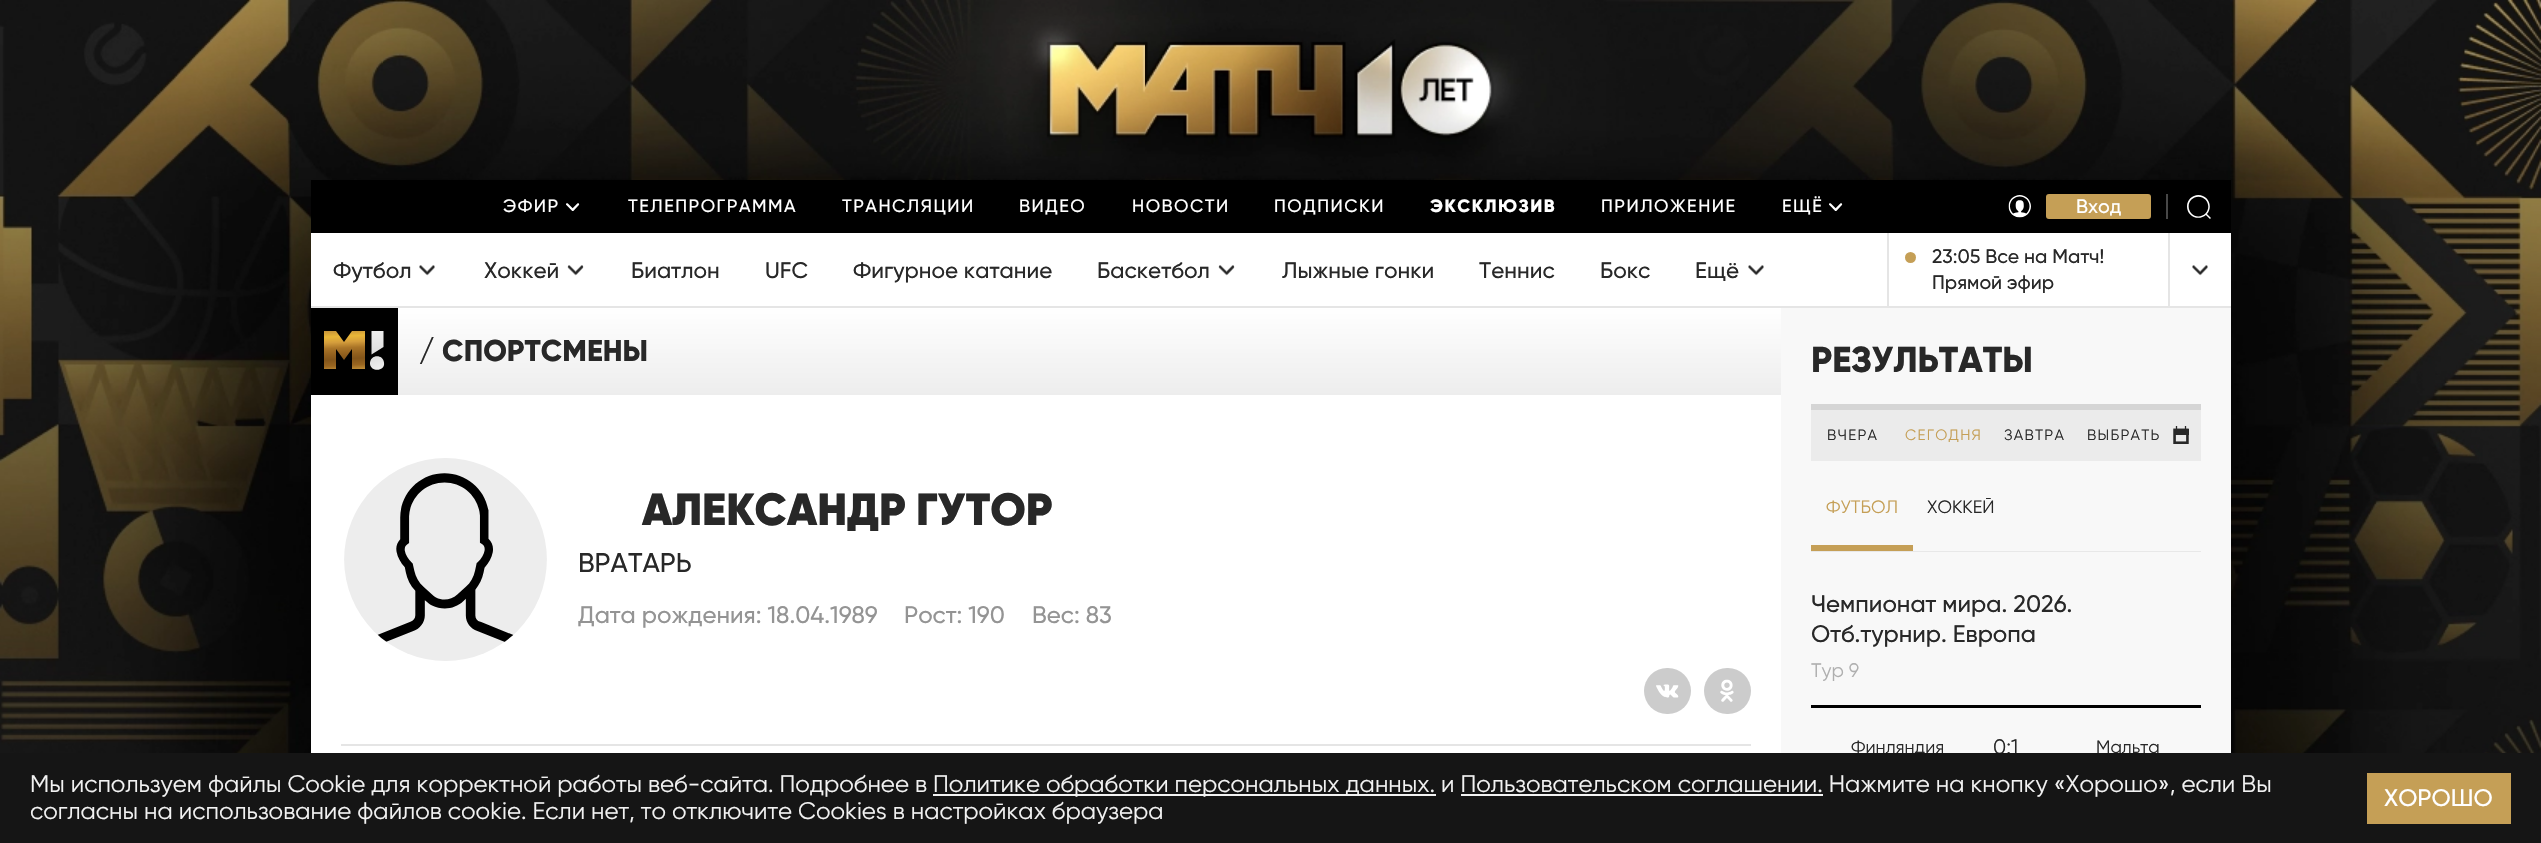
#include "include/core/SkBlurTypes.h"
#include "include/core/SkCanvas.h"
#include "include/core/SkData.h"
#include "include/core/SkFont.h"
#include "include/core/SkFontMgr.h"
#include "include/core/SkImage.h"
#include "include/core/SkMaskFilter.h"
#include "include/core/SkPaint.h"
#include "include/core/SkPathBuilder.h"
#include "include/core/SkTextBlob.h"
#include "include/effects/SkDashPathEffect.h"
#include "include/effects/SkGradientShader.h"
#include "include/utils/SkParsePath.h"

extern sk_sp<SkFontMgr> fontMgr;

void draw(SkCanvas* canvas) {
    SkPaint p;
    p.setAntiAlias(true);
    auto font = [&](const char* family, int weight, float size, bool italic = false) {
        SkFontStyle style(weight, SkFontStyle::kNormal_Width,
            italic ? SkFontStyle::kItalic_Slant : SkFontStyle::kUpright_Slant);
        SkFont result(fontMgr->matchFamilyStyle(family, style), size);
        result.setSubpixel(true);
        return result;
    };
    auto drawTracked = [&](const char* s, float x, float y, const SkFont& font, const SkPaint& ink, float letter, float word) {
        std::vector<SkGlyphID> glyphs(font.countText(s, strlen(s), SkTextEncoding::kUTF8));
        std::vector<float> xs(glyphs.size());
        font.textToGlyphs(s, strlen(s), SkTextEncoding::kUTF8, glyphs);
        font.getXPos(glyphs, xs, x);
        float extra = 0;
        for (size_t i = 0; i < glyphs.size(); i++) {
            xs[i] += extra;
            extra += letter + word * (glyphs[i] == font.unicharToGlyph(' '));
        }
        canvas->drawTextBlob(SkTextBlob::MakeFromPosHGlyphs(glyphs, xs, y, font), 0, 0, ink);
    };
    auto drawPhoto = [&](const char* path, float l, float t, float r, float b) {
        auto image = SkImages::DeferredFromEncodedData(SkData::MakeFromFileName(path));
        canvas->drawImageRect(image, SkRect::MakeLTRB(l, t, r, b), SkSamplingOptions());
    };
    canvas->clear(0xFFFFFFFF);
    drawPhoto("media/1.png", 0, 0, 2541, 753);
    p.setColor(0xFFFFFFFF);
    canvas->drawRect(SkRect::MakeLTRB(311, 233, 2231, 306), p);
    p.setColor(0xFF000000);
    canvas->drawRect(SkRect::MakeLTRB(311, 180, 2231, 233), p);
    auto font1 = font("Gilroy", 500, 18);
    p.setColor(0xFFFFFFFF);
    drawTracked("ЭФИР", 503, 212, font1, p, 1.5f, 0);
    drawPhoto("media/2.png", 566, 203, 580, 211);
    {
        const struct { const char* s; float x, y; } items[] = {
            {"ТЕЛЕПРОГРАММА", 628, 212},
            {"ТРАНСЛЯЦИИ", 842, 212},
            {"ВИДЕО", 1019, 212},
            {"НОВОСТИ", 1132, 212},
            {"ПОДПИСКИ", 1274, 212},
        };
        for (auto [s, x, y] : items) {
            drawTracked(s, x, y, font1, p, 1.5f, 0);
        }
    }
    auto font2 = font("Gilroy", 800, 18);
    drawTracked("ЭКСКЛЮЗИВ", 1430, 212, font2, p, 1.5f, 0);
    drawTracked("ПРИЛОЖЕНИЕ", 1601, 212, font1, p, 1.5f, 0);
    drawTracked("ЕЩЁ", 1782, 212, font1, p, 1.5f, 0);
    drawPhoto("media/2.png", 1829, 203, 1843, 211);
    drawPhoto("media/3.png", 2008, 195, 2031, 218);
    p.setColor(0xFFC59F56);
    canvas->drawRoundRect(SkRect::MakeLTRB(2046, 194, 2151, 219), 3, 3, p);
    auto font3 = font("Gilroy", 500, 19.5f);
    p.setColor(0xFFFFFFFF);
    canvas->drawString("Вход", 2076, 213, font3, p);
    p.setColor(0xFF484848);
    canvas->drawRect(SkRect::MakeLTRB(2166, 194, 2168, 219), p);
    drawPhoto("media/4.png", 2187, 195, 2211, 219);
    auto font4 = font("Gilroy", 500, 22.5f);
    p.setColor(0xFF282828);
    canvas->drawString("Футбол", 333, 278, font4, p);
    drawPhoto("media/5.png", 419, 265, 435, 276);
    canvas->drawString("Хоккей", 484, 278, font4, p);
    drawPhoto("media/6.png", 567, 265, 584, 276);
    {
        const struct { const char* s; float x, y; } items[] = {
            {"Биатлон", 631, 278},
            {"UFC", 765, 278},
            {"Фигурное катание", 853, 278},
            {"Баскетбол", 1097, 278},
        };
        for (auto [s, x, y] : items) {
            canvas->drawString(s, x, y, font4, p);
        }
    }
    drawPhoto("media/6.png", 1218, 265, 1235, 276);
    {
        const struct { const char* s; float x, y; } items[] = {
            {"Лыжные гонки", 1282, 278},
            {"Теннис", 1479, 278},
            {"Бокс", 1600, 278},
            {"Ещё", 1695, 278},
        };
        for (auto [s, x, y] : items) {
            canvas->drawString(s, x, y, font4, p);
        }
    }
    drawPhoto("media/5.png", 1748, 265, 1764, 276);
    p.setColor(0xFFE5E5E5);
    canvas->drawRect(SkRect::MakeLTRB(311, 306, 2231, 308), p);
    canvas->drawRect(SkRect::MakeLTRB(1887, 233, 1889, 306), p);
    p.setColor(0xFFC59F56);
    canvas->drawCircle(1910.5f, 257.5f, 5.5f, p);
    p.setColor(0xFF282828);
    canvas->drawString("23:05 Все на Матч!", 1932, 263, font3, p);
    canvas->drawString("Прямой эфир", 1932, 289, font3, p);
    p.setColor(0xFFE5E5E5);
    canvas->drawRect(SkRect::MakeLTRB(2168, 233, 2170, 306), p);
    drawPhoto("media/5.png", 2192, 265, 2208, 276);
    p.setColor(0xFFFFFFFF);
    canvas->drawRect(SkRect::MakeLTRB(311, 395, 1781, 753), p);
    {
        const SkColor colors[] = {0xFFFFFFFF, 0xFFEDEDED};
        const float stops[] = {0, 1};
        const SkPoint ends[] = {{1046, 307}, {1046, 395}};
        p.setShader(SkGradientShader::MakeLinear(ends, colors, stops, 2, SkTileMode::kClamp));
        p.setAlpha(255);
    }
    canvas->drawRect(SkRect::MakeLTRB(398, 308, 1781, 395), p);
    p.setShader(nullptr);
    p.setColor(0xFF000000);
    canvas->drawRect(SkRect::MakeLTRB(311, 308, 398, 395), p);
    {
        const SkColor colors[] = {0xFFC59239, 0xFFE9B738, 0xFFD49D3C, 0xFFA97427, 0xFF92601E, 0xFF83551A, 0xFF996520, 0xFFF0C053};
        const float stops[] = {0.05f, 0.16f, 0.26f, 0.36f, 0.47f, 0.55f, 0.66f, 0.84f};
        const SkPoint ends[] = {{343, 327}, {346, 385}};
        p.setShader(SkGradientShader::MakeLinear(ends, colors, stops, 8, SkTileMode::kClamp));
        p.setAlpha(255);
    }
    canvas->drawPath(SkPathBuilder().moveTo(365, 331).lineTo(365, 369).lineTo(352, 369).lineTo(352, 349).lineTo(344, 360).lineTo(336, 349).lineTo(336, 369).lineTo(324, 369).lineTo(324, 331).lineTo(336, 331).lineTo(344, 342).lineTo(352, 331).close().detach(), p);
    {
        const SkColor colors[] = {0xFF000000, 0xFFF0F0F0};
        const float stops[] = {0, 1};
        const SkPoint ends[] = {{356, 644}, {378, 328}};
        p.setShader(SkGradientShader::MakeLinear(ends, colors, stops, 2, SkTileMode::kClamp));
        p.setAlpha(255);
    }
    canvas->drawPath(SkPathBuilder(SkPathFillType::kEvenOdd).moveTo(371.5f, 331).lineTo(371.5f, 354.5f).lineTo(383.5f, 347).lineTo(383.5f, 331).close().detach(), p);
    {
        const SkColor colors[] = {0xFFF1F1F1, 0xFFBDBDBD};
        const float stops[] = {0, 1};
        const SkPoint ends[] = {{380, 371}, {364, 330}};
        p.setShader(SkGradientShader::MakeLinear(ends, colors, stops, 2, SkTileMode::kClamp));
        p.setAlpha(255);
    }
    canvas->drawPath(SkPathBuilder(SkPathFillType::kEvenOdd).moveTo(384, 362.5f).cubicTo(383, 353.5f, 369.5f, 354.5f, 370, 364).cubicTo(371, 372.5f, 385.5f, 371.5f, 384, 362.5f).close().detach(), p);
    auto font5 = font("Gilroy", 800, 30);
    p.setShader(nullptr);
    p.setColor(0xFF282828);
    canvas->drawString("/ СПОРТСМЕНЫ", 419, 361, font5, p);
    drawPhoto("media/7.png", 344, 458, 547, 661);
    auto font6 = font("Gilroy", 900, 45);
    canvas->drawString("АЛЕКСАНДР ГУТОР", 642, 525, font6, p);
    auto font7 = font("Gilroy", 500, 27);
    canvas->drawString("ВРАТАРЬ", 578, 572, font7, p);
    auto font8 = font("Gilroy", 500, 24);
    p.setColor(0xFF949494);
    {
        const struct { const char* s; float x, y; } items[] = {
            {"Дата рождения: 18.04.1989", 578, 623},
            {"Рост: 190", 904, 623},
            {"Вес: 83", 1032, 623},
        };
        for (auto [s, x, y] : items) {
            canvas->drawString(s, x, y, font8, p);
        }
    }
    p.setColor(0xFFE5E5E5);
    canvas->drawRect(SkRect::MakeLTRB(341, 744, 1751, 746), p);
    p.setColor(0xFFCCCCCC);
    canvas->drawRoundRect(SkRect::MakeLTRB(1644, 668, 1691, 714), 23, 23, p);
    drawPhoto("media/8.png", 1656, 684, 1679, 698);
    canvas->drawRoundRect(SkRect::MakeLTRB(1704, 668, 1751, 714), 23, 23, p);
    drawPhoto("media/9.png", 1720, 679, 1734, 702);
    p.setColor(0xFFF8F8F8);
    canvas->drawRect(SkRect::MakeLTRB(1781, 308, 2231, 753), p);
    auto font9 = font("Gilroy", 800, 36);
    p.setColor(0xFF282828);
    canvas->drawString("РЕЗУЛЬТАТЫ", 1811, 372, font9, p);
    p.setColor(0xFFD5D5D5);
    canvas->drawRect(SkRect::MakeLTRB(1811, 404, 2201, 410), p);
    p.setColor(0xFFEBEBEB);
    canvas->drawRect(SkRect::MakeLTRB(1811, 410, 2201, 461), p);
    auto font10 = font("Gilroy", 400, 15);
    p.setColor(0xFF282828);
    drawTracked("ВЧЕРА", 1827, 440, font10, p, 1.25f, 0);
    p.setColor(0xFFC59F56);
    drawTracked("СЕГОДНЯ", 1905, 440, font10, p, 1.25f, 0);
    p.setColor(0xFF282828);
    drawTracked("ЗАВТРА", 2004, 440, font10, p, 1.25f, 0);
    drawTracked("ВЫБРАТЬ", 2087, 440, font10, p, 1.25f, 0);
    drawPhoto("media/10.png", 2173, 426, 2189, 444);
    auto font11 = font("Gilroy", 400, 18);
    p.setColor(0xFFC59F56);
    canvas->drawString("ФУТБОЛ", 1826, 513, font11, p);
    canvas->drawRect(SkRect::MakeLTRB(1811, 545, 1913, 551), p);
    p.setColor(0xFF282828);
    canvas->drawString("ХОККЕЙ", 1927, 513, font11, p);
    p.setColor(0xFFE8E8E8);
    canvas->drawRect(SkRect::MakeLTRB(1811, 551, 2201, 552), p);
    p.setColor(0xFF000000);
    canvas->drawRect(SkRect::MakeLTRB(1811, 705, 2201, 708), p);
    p.setColor(0xFF282828);
    canvas->drawString("Чемпионат мира. 2026.", 1811, 612, font8, p);
    canvas->drawString("Отб.турнир. Европа", 1811, 642, font8, p);
    auto font12 = font("Gilroy", 400, 19.5f);
    p.setColor(0xFFAFAFAF);
    canvas->drawString("Тур 9", 1811, 677, font12, p);
    p.setColor(0xFF282828);
    canvas->drawString("Финляндия", 1851, 753, font11, p);
    auto font13 = font("Gilroy", 400, 21);
    canvas->drawString("0:1", 1993, 754, font13, p);
    canvas->drawString("Мальта", 2096, 753, font11, p);
    p.setColor(0xFF151515);
    canvas->drawRect(SkRect::MakeLTRB(0, 753, 2541, 843), p);
    auto font14 = font("Gilroy", 400, 24);
    p.setColor(0xFFF2F2F2);
    canvas->drawString("Мы используем файлы Сookie для корректной работы веб-сайта. Подробнее в", 30, 792, font14, p);
    canvas->drawRect(SkRect::MakeLTRB(933, 794, 1436, 796), p);
    canvas->drawString("Политике обработки персональных данных. и Пользовательском соглашении. Нажмите на кнопку «Хорошо», если Вы", 933, 792, font14, p);
    canvas->drawRect(SkRect::MakeLTRB(1461, 794, 1823, 796), p);
    canvas->drawString("согласны на использование файлов cookie. Если нет, то отключите Cookies в настройках браузера", 30, 819, font14, p);
    p.setColor(0xFFC59F56);
    canvas->drawRect(SkRect::MakeLTRB(2367, 773, 2511, 824), p);
    p.setColor(0xFFFFFFFF);
    canvas->drawString("ХОРОШО", 2384, 806, font8, p);
}
